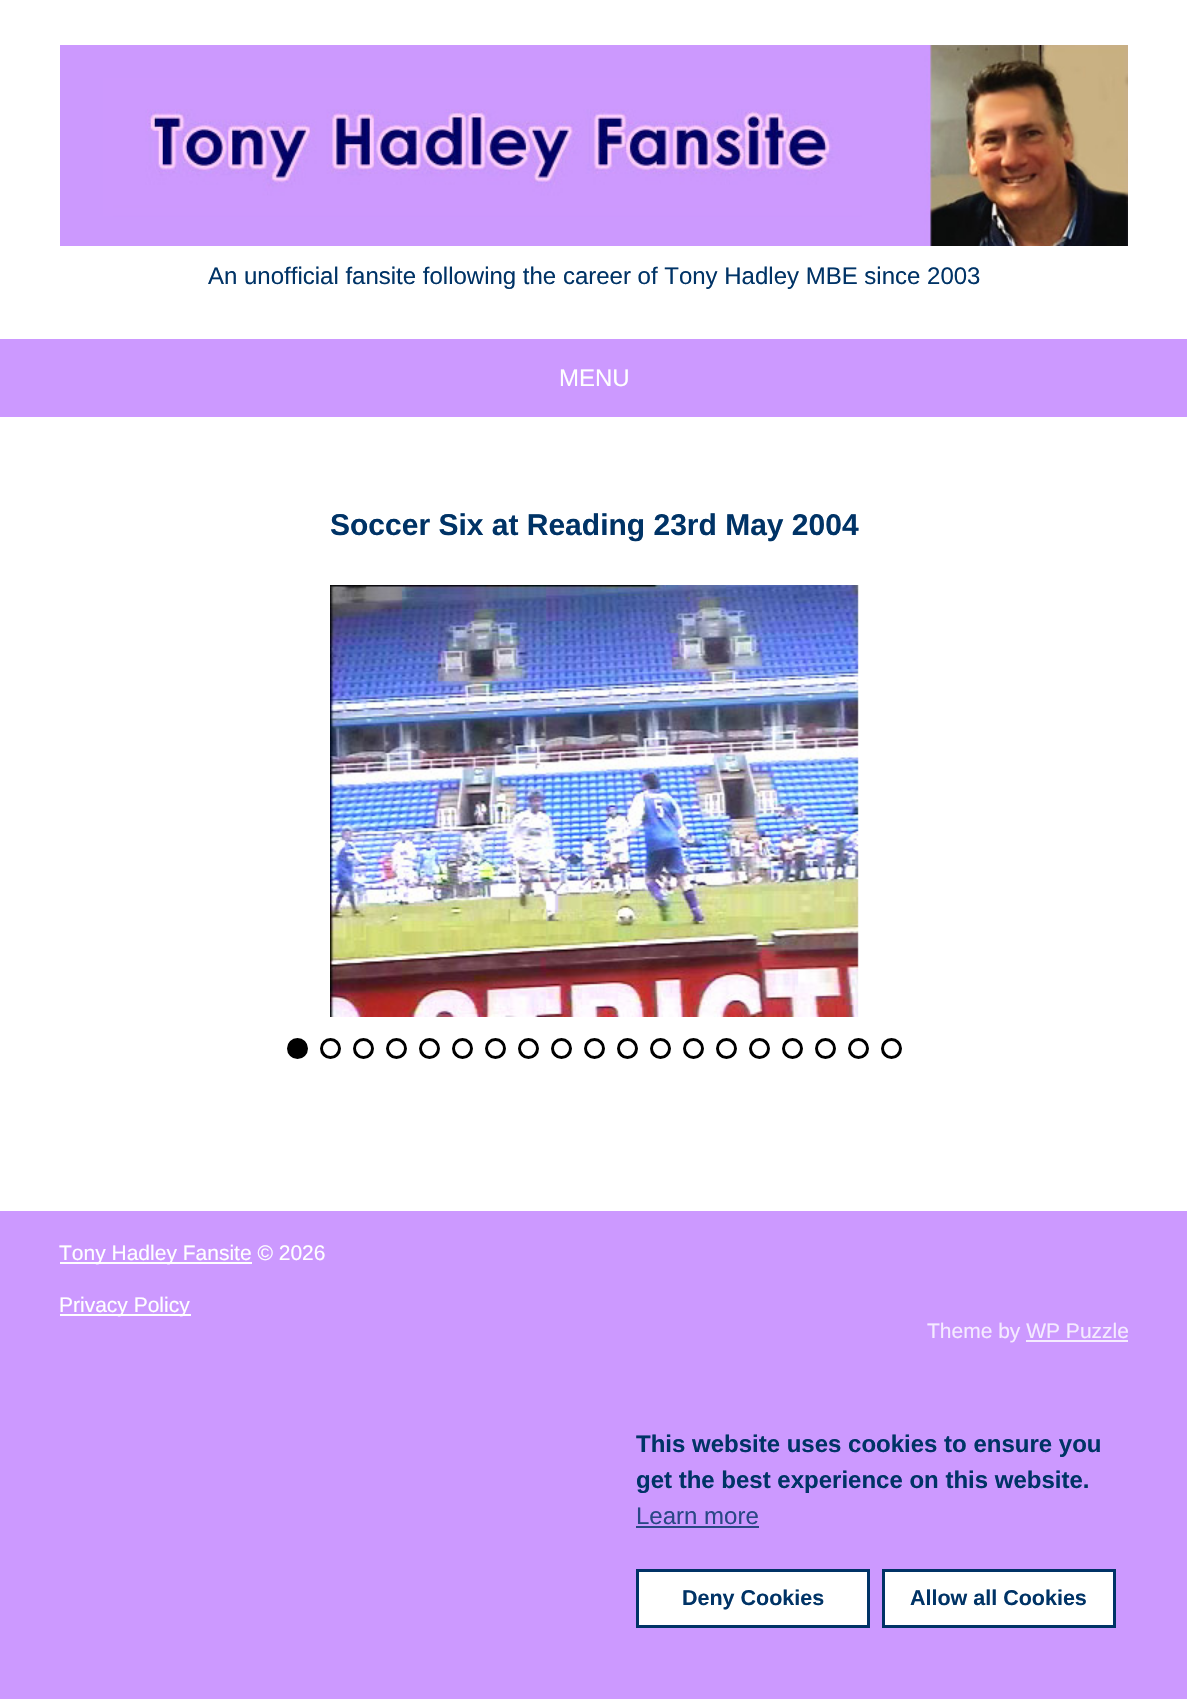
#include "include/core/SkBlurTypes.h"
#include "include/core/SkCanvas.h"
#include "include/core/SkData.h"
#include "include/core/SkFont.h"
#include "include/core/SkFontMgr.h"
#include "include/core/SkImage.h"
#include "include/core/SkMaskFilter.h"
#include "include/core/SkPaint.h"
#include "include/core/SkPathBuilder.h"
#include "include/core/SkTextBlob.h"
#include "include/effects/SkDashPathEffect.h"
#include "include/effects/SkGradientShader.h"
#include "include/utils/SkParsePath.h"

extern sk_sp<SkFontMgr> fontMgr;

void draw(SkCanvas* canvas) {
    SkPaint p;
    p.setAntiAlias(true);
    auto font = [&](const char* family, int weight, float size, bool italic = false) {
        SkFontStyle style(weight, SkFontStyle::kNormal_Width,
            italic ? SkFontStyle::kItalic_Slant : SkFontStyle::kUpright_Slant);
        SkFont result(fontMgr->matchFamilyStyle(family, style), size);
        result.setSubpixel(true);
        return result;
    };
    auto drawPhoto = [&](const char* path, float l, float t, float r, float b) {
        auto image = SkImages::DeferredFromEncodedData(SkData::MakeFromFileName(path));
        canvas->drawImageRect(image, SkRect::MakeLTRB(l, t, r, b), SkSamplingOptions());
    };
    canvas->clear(0xFFCC99FF);
    p.setColor(0xFFFFFFFF);
    canvas->drawRect(SkRect::MakeLTRB(0, 0, 1187, 1211), p);
    drawPhoto("media/1.png", 60, 45, 1128, 246);
    auto font1 = font("Liberation Sans", 400, 24);
    p.setColor(0xFF003366);
    canvas->drawString("An unofficial fansite following the career of Tony Hadley MBE since 2003", 208, 284, font1, p);
    p.setColor(0xFFCC99FF);
    canvas->drawRect(SkRect::MakeLTRB(0, 339, 1187, 417), p);
    p.setColor(0xFFFFFFFF);
    canvas->drawString("MENU", 559, 386, font1, p);
    auto font2 = font("Liberation Sans", 700, 30);
    p.setColor(0xFF003366);
    canvas->drawString("Soccer Six at Reading 23rd May 2004", 330, 535, font2, p);
    drawPhoto("media/2.png", 330, 585, 859, 1017);
    p.setColor(0xFF000000);
    canvas->drawCircle(297.5f, 1048.5f, 9, p);
    p.setStyle(SkPaint::kStroke_Style);
    p.setStrokeWidth(3);
    canvas->drawCircle(297.5f, 1048.5f, 9, p);
    canvas->drawCircle(330.5f, 1048.5f, 9, p);
    canvas->drawCircle(363.5f, 1048.5f, 9, p);
    canvas->drawCircle(396.5f, 1048.5f, 9, p);
    canvas->drawCircle(429.5f, 1048.5f, 9, p);
    canvas->drawCircle(462.5f, 1048.5f, 9, p);
    canvas->drawCircle(495.5f, 1048.5f, 9, p);
    canvas->drawCircle(528.5f, 1048.5f, 9, p);
    canvas->drawCircle(561.5f, 1048.5f, 9, p);
    canvas->drawCircle(594.5f, 1048.5f, 9, p);
    canvas->drawCircle(627.5f, 1048.5f, 9, p);
    canvas->drawCircle(660.5f, 1048.5f, 9, p);
    canvas->drawCircle(693.5f, 1048.5f, 9, p);
    canvas->drawCircle(726.5f, 1048.5f, 9, p);
    canvas->drawCircle(759.5f, 1048.5f, 9, p);
    canvas->drawCircle(792.5f, 1048.5f, 9, p);
    canvas->drawCircle(825.5f, 1048.5f, 9, p);
    canvas->drawCircle(858.5f, 1048.5f, 9, p);
    canvas->drawCircle(891.5f, 1048.5f, 9, p);
    p.setStyle(SkPaint::kFill_Style);
    p.setColor(0xFFFFFFFF);
    canvas->drawRect(SkRect::MakeLTRB(60, 1262, 252, 1264), p);
    auto font3 = font("Liberation Sans", 400, 21);
    canvas->drawString("Tony Hadley Fansite © 2026", 59, 1260, font3, p);
    canvas->drawRect(SkRect::MakeLTRB(60, 1314, 191, 1316), p);
    canvas->drawString("Privacy Policy", 59, 1312, font3, p);
    p.setColor(0xFFF5EBFF);
    canvas->drawString("Theme by WP Puzzle", 927, 1338, font3, p);
    canvas->drawRect(SkRect::MakeLTRB(1026, 1340, 1128, 1342), p);
    auto font4 = font("Liberation Sans", 700, 24);
    p.setColor(0xFF003366);
    canvas->drawString("This website uses cookies to ensure you", 636, 1452, font4, p);
    canvas->drawString("get the best experience on this website.", 636, 1488, font4, p);
    p.setColor(0xFF294785);
    canvas->drawString("Learn more", 636, 1524, font1, p);
    canvas->drawRect(SkRect::MakeLTRB(636, 1526, 759, 1528), p);
    p.setColor(0xFFFFFFFF);
    canvas->drawRect(SkRect::MakeLTRB(637.5f, 1570.5f, 868.5f, 1626.5f), p);
    p.setStyle(SkPaint::kStroke_Style);
    p.setColor(0xFF003366);
    canvas->drawRect(SkRect::MakeLTRB(637.5f, 1570.5f, 868.5f, 1626.5f), p);
    auto font5 = font("Liberation Sans", 700, 21.5f);
    p.setStyle(SkPaint::kFill_Style);
    canvas->drawString("Deny Cookies", 682, 1605, font5, p);
    p.setColor(0xFFFFFFFF);
    canvas->drawRect(SkRect::MakeLTRB(883.5f, 1570.5f, 1114.5f, 1626.5f), p);
    p.setStyle(SkPaint::kStroke_Style);
    p.setColor(0xFF003366);
    canvas->drawRect(SkRect::MakeLTRB(883.5f, 1570.5f, 1114.5f, 1626.5f), p);
    p.setStyle(SkPaint::kFill_Style);
    canvas->drawString("Allow all Cookies", 910, 1605, font5, p);
}
